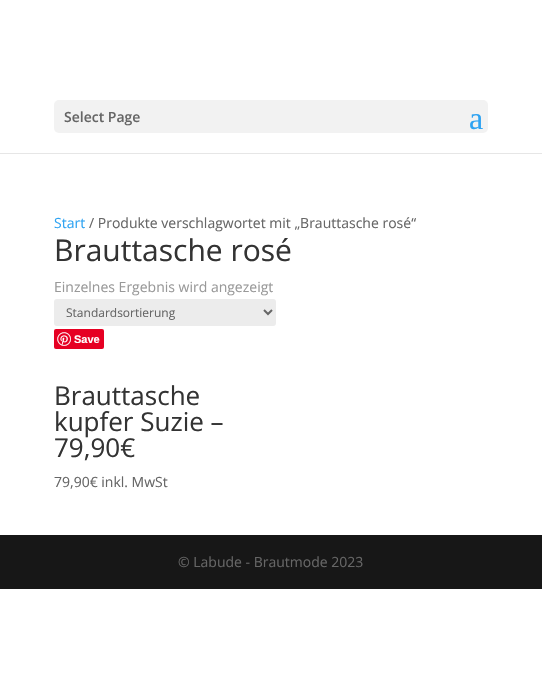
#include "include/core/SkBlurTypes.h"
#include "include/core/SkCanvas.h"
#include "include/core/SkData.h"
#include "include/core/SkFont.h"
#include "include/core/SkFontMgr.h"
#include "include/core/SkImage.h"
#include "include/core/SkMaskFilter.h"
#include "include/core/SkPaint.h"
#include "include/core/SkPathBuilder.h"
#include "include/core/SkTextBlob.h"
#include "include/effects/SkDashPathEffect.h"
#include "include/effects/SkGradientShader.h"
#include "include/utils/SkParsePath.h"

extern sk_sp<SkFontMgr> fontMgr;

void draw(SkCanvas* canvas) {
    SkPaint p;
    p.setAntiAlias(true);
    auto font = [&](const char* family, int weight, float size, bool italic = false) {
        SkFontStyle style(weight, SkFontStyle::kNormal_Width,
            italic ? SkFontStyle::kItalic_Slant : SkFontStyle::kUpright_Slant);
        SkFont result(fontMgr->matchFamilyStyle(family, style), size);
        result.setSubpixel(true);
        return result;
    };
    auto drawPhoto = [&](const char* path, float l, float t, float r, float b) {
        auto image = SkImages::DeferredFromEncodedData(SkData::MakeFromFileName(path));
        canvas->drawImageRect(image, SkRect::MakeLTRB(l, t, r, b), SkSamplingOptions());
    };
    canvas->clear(0xFFFFFFFF);
    p.setColor(0xFFE6E6E6);
    canvas->drawRect(SkRect::MakeLTRB(0, 153, 542, 154), p);
    p.setColor(0xFFF2F2F2);
    canvas->drawRoundRect(SkRect::MakeLTRB(54, 100, 488, 133), 5, 5, p);
    auto font1 = font("Open Sans", 600, 14);
    p.setColor(0xFF666666);
    canvas->drawString("Select Page", 64, 122, font1, p);
    auto font2 = font("Liberation Serif", 400, 32);
    p.setColor(0xFF2EA3F2);
    canvas->drawString("a", 469, 129, font2, p);
    auto font3 = font("Open Sans", 400, 14);
    canvas->drawString("Start", 54, 228, font3, p);
    p.setColor(0xFF666666);
    canvas->drawString("/ Produkte verschlagwortet mit „Brauttasche rosé“", 89, 228, font3, p);
    auto font4 = font("Open Sans", 400, 30);
    p.setColor(0xFF333333);
    canvas->drawString("Brauttasche rosé", 54, 261, font4, p);
    p.setColor(0xFF999999);
    canvas->drawString("Einzelnes Ergebnis wird angezeigt", 54, 292, font3, p);
    p.setColor(0xFFECECEC);
    canvas->drawRoundRect(SkRect::MakeLTRB(54, 299, 276, 326), 3, 3, p);
    p.setStyle(SkPaint::kStroke_Style);
    p.setStrokeWidth(2);
    p.setColor(0xFF666666);
    canvas->drawPath(SkPathBuilder().moveTo(264, 310).lineTo(268, 314).lineTo(272, 310).detach(), p);
    auto font5 = font("Open Sans", 400, 12);
    p.setStyle(SkPaint::kFill_Style);
    canvas->drawString("Standardsortierung", 66, 317, font5, p);
    p.setColor(0xFFE60023);
    canvas->drawRoundRect(SkRect::MakeLTRB(54, 329, 104, 349), 2, 2, p);
    drawPhoto("media/1.png", 57, 332, 71, 346);
    auto font6 = font("Liberation Sans", 700, 11);
    p.setColor(0xFFFFFFFF);
    canvas->drawString("Save", 74, 343, font6, p);
    auto font7 = font("Open Sans", 400, 26);
    p.setColor(0xFF333333);
    {
        const struct { const char* s; float x, y; } items[] = {
            {"Brauttasche", 54, 405},
            {"kupfer Suzie –", 54, 431},
            {"79,90€", 54, 457},
        };
        for (auto [s, x, y] : items) {
            canvas->drawString(s, x, y, font7, p);
        }
    }
    p.setColor(0xFF666666);
    canvas->drawString("79,90€ inkl. MwSt", 54, 487, font3, p);
    p.setColor(0xFF171717);
    canvas->drawRect(SkRect::MakeLTRB(0, 535, 542, 589), p);
    p.setColor(0xFF666666);
    canvas->drawString("© Labude - Brautmode 2023", 178, 567, font3, p);
}
